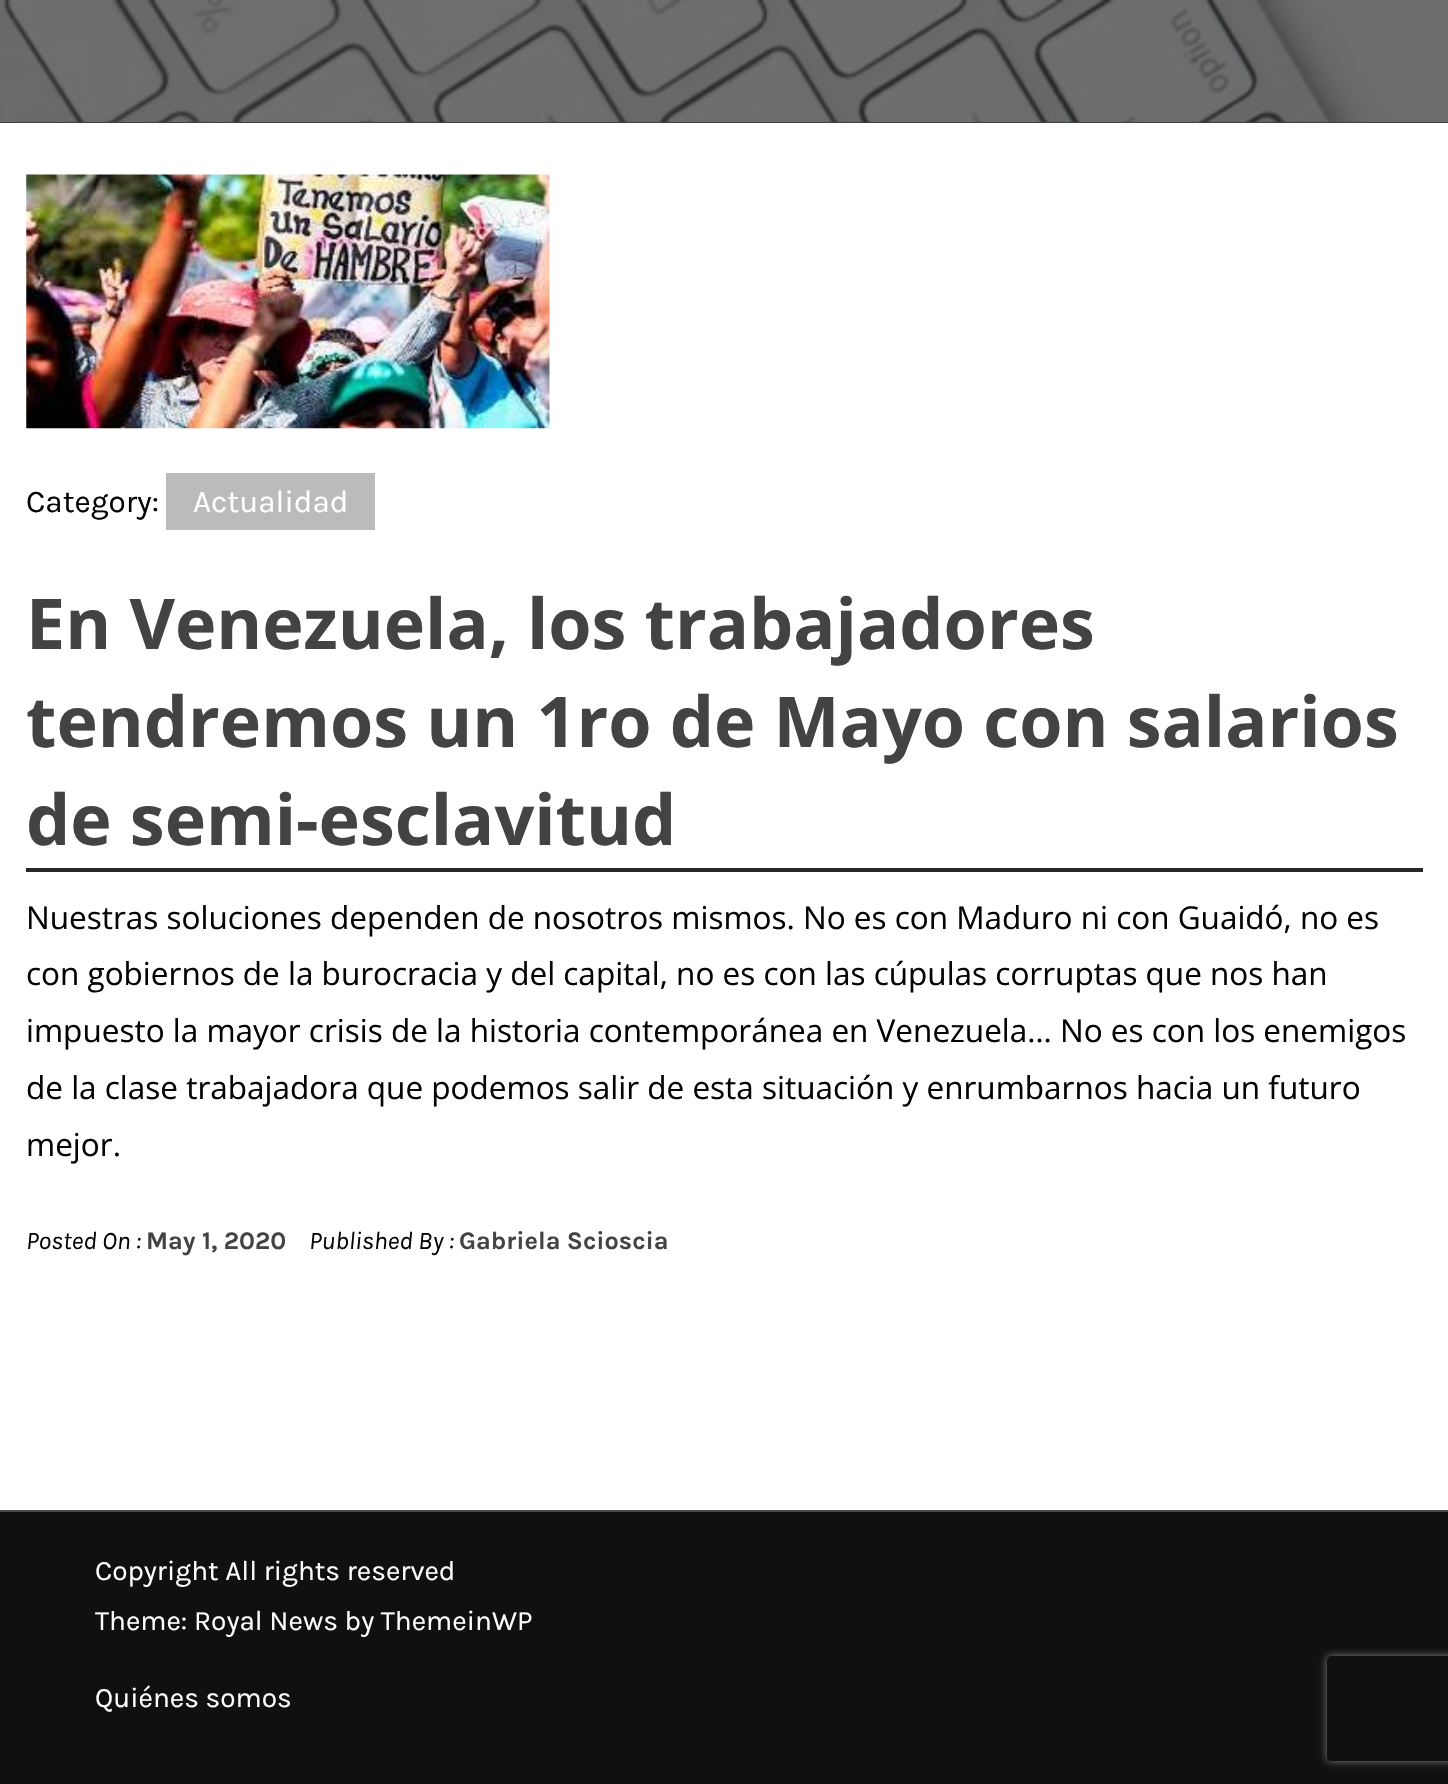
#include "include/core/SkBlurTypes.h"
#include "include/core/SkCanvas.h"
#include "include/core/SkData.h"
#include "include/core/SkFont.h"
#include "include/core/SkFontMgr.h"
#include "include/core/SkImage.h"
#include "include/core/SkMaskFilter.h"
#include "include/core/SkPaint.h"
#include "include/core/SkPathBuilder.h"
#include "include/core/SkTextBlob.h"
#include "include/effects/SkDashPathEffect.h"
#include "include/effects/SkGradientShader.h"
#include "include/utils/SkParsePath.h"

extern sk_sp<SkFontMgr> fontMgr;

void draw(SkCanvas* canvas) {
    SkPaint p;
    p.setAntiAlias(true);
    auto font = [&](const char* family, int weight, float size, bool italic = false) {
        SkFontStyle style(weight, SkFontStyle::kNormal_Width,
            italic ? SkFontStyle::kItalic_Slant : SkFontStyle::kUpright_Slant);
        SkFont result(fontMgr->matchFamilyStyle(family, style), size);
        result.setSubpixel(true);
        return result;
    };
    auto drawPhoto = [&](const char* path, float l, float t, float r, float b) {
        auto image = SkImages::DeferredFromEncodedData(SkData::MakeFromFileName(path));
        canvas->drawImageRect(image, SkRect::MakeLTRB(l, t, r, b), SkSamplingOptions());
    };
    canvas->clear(0xFFFFFFFF);
    p.setColor(0xFF3F3F3F);
    canvas->drawRect(SkRect::MakeLTRB(0, 122, 1448, 123), p);
    drawPhoto("media/1.png", 0, 0, 1448, 122);
    drawPhoto("media/2.png", 26, 174, 550, 429);
    auto font1 = font("Karla", 400, 31.5f);
    p.setColor(0xFF040404);
    canvas->drawString("Category:", 26, 512, font1, p);
    p.setColor(0xFFBBBBBB);
    canvas->drawRect(SkRect::MakeLTRB(166, 473, 375, 530), p);
    p.setColor(0xFFFFFFFF);
    canvas->drawString("Actualidad", 193, 512, font1, p);
    p.setColor(0xFF282828);
    canvas->drawRect(SkRect::MakeLTRB(26, 868, 1423, 872), p);
    auto font2 = font("Open Sans", 700, 70);
    p.setColor(0xFF434343);
    {
        const struct { const char* s; float x, y; } items[] = {
            {"En Venezuela, los trabajadores", 26, 649},
            {"tendremos un 1ro de Mayo con salarios", 26, 747},
            {"de semi-esclavitud", 26, 845},
        };
        for (auto [s, x, y] : items) {
            canvas->drawString(s, x, y, font2, p);
        }
    }
    auto font3 = font("Open Sans", 400, 31.5f);
    p.setColor(0xFF040404);
    {
        const struct { const char* s; float x, y; } items[] = {
            {"Nuestras soluciones dependen de nosotros mismos. No es con Maduro ni con Guaidó, no es", 26, 929},
            {"con gobiernos de la burocracia y del capital, no es con las cúpulas corruptas que nos han", 26, 985},
            {"impuesto la mayor crisis de la historia contemporánea en Venezuela… No es con los enemigos", 26, 1042},
            {"de la clase trabajadora que podemos salir de esta situación y enrumbarnos hacia un futuro", 26, 1099},
            {"mejor.", 26, 1156},
        };
        for (auto [s, x, y] : items) {
            canvas->drawString(s, x, y, font3, p);
        }
    }
    auto font4 = font("Karla", 400, 25.25f, true);
    canvas->drawString("Posted On :", 26, 1249, font4, p);
    auto font5 = font("Karla", 700, 25.25f);
    p.setColor(0xFF434343);
    canvas->drawString("May 1, 2020", 146, 1249, font5, p);
    p.setColor(0xFF040404);
    canvas->drawString("Published By :", 309, 1249, font4, p);
    p.setColor(0xFF434343);
    canvas->drawString("Gabriela Scioscia", 459, 1249, font5, p);
    p.setColor(0xFF0F100F);
    canvas->drawRect(SkRect::MakeLTRB(0, 1512, 1448, 1784), p);
    p.setColor(0xFF4A4848);
    canvas->drawRect(SkRect::MakeLTRB(0, 1510, 1448, 1512), p);
    auto font6 = font("Karla", 400, 28);
    p.setColor(0xFFFFFFFF);
    {
        const struct { const char* s; float x, y; } items[] = {
            {"Copyright All rights reserved", 95, 1580},
            {"Theme: Royal News by ThemeinWP", 95, 1630},
            {"Quiénes somos", 95, 1707},
        };
        for (auto [s, x, y] : items) {
            canvas->drawString(s, x, y, font6, p);
        }
    }
    canvas->save();
    canvas->clipPath(SkPathBuilder(SkPathFillType::kEvenOdd).moveTo(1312, 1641).lineTo(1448, 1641).lineTo(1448, 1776).lineTo(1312, 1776).close().moveTo(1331, 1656).lineTo(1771, 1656).cubicTo(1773, 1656, 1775, 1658, 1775, 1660).lineTo(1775, 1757).cubicTo(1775, 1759, 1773, 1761, 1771, 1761).lineTo(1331, 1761).cubicTo(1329, 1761, 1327, 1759, 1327, 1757).lineTo(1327, 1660).cubicTo(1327, 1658, 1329, 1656, 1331, 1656).close().detach(), true);
    p.setColor(0xFF808080);
    p.setMaskFilter(SkMaskFilter::MakeBlur(kNormal_SkBlurStyle, 4.5f));
    canvas->drawRoundRect(SkRect::MakeLTRB(1327, 1656, 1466, 1761), 4, 4, p);
    p.setMaskFilter(nullptr);
    canvas->restore();
}
